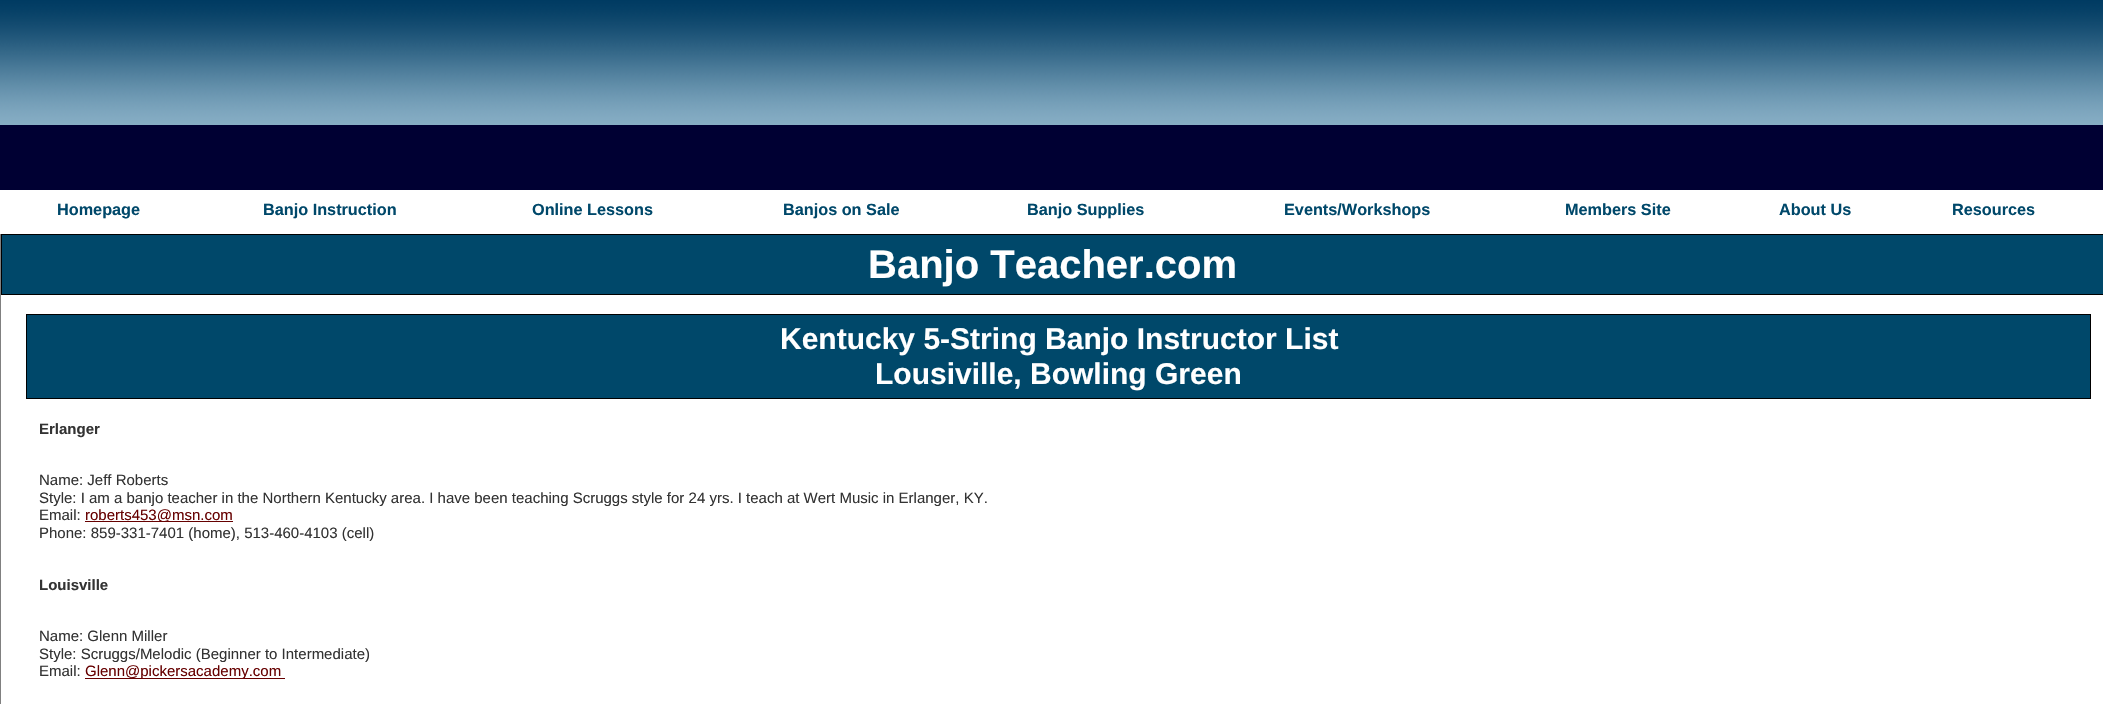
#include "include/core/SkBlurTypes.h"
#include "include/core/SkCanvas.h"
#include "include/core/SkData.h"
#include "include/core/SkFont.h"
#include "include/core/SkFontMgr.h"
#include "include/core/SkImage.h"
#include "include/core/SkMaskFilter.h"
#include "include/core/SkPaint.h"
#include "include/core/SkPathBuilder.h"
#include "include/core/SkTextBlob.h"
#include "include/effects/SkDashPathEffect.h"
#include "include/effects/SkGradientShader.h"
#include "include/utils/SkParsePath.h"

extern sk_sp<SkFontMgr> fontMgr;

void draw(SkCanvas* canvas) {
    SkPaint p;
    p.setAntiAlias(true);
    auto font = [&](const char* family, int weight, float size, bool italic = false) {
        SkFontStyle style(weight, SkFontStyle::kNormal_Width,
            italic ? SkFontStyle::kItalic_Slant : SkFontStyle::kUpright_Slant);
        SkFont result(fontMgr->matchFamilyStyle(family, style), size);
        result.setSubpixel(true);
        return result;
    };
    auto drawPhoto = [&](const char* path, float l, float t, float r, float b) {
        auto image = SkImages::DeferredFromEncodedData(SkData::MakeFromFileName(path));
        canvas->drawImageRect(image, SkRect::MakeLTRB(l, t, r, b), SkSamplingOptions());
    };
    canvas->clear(0xFFFFFFFF);
    p.setColor(0xFF000033);
    canvas->drawRect(SkRect::MakeLTRB(0, 125, 2103, 190), p);
    drawPhoto("media/1.png", 0, 0, 2103, 125);
    auto font1 = font("Liberation Sans", 700, 16.25f);
    p.setColor(0xFF00486A);
    {
        const struct { const char* s; float x, y; } items[] = {
            {"Homepage", 57, 215},
            {"Banjo Instruction", 263, 215},
            {"Online Lessons", 532, 215},
            {"Banjos on Sale", 783, 215},
            {"Banjo Supplies", 1027, 215},
            {"Events/Workshops", 1284, 215},
            {"Members Site", 1565, 215},
            {"About Us", 1779, 215},
            {"Resources", 1952, 215},
        };
        for (auto [s, x, y] : items) {
            canvas->drawString(s, x, y, font1, p);
        }
    }
    p.setColor(0xFF808080);
    canvas->drawRect(SkRect::MakeLTRB(0, 234, 1, 704), p);
    p.setColor(0xFF00486A);
    canvas->drawRect(SkRect::MakeLTRB(1.5f, 234.5f, 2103.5f, 294.5f), p);
    p.setStyle(SkPaint::kStroke_Style);
    p.setStrokeWidth(1);
    p.setColor(0xFF000000);
    canvas->drawRect(SkRect::MakeLTRB(1.5f, 234.5f, 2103.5f, 294.5f), p);
    auto font2 = font("Liberation Sans", 700, 40);
    p.setStyle(SkPaint::kFill_Style);
    p.setColor(0xFFFFFFFF);
    canvas->drawString("Banjo Teacher.com", 868, 278, font2, p);
    p.setColor(0xFF00486A);
    canvas->drawRect(SkRect::MakeLTRB(26.5f, 314.5f, 2090.5f, 398.5f), p);
    p.setStyle(SkPaint::kStroke_Style);
    p.setColor(0xFF000000);
    canvas->drawRect(SkRect::MakeLTRB(26.5f, 314.5f, 2090.5f, 398.5f), p);
    auto font3 = font("Liberation Sans", 700, 30);
    p.setStyle(SkPaint::kFill_Style);
    p.setColor(0xFFFFFFFF);
    canvas->drawString("Kentucky 5-String Banjo Instructor List", 780, 349, font3, p);
    canvas->drawString("Lousiville, Bowling Green", 875, 384, font3, p);
    auto font4 = font("Liberation Sans", 700, 15);
    p.setColor(0xFF333333);
    canvas->drawString("Erlanger", 39, 434, font4, p);
    auto font5 = font("Liberation Sans", 400, 15);
    {
        const struct { const char* s; float x, y; } items[] = {
            {"Name: Jeff Roberts", 39, 485},
            {"Style: I am a banjo teacher in the Northern Kentucky area. I have been teaching Scruggs style for 24 yrs. I teach at Wert Music in Erlanger, KY.", 39, 503},
            {"Email:", 39, 520},
        };
        for (auto [s, x, y] : items) {
            canvas->drawString(s, x, y, font5, p);
        }
    }
    p.setColor(0xFF660000);
    canvas->drawRect(SkRect::MakeLTRB(85, 521, 233, 522), p);
    canvas->drawString("roberts453@msn.com", 85, 520, font5, p);
    p.setColor(0xFF333333);
    canvas->drawString("Phone: 859-331-7401 (home), 513-460-4103 (cell)", 39, 538, font5, p);
    canvas->drawString("Louisville", 39, 590, font4, p);
    {
        const struct { const char* s; float x, y; } items[] = {
            {"Name: Glenn Miller", 39, 641},
            {"Style: Scruggs/Melodic (Beginner to Intermediate)", 39, 659},
            {"Email:", 39, 676},
        };
        for (auto [s, x, y] : items) {
            canvas->drawString(s, x, y, font5, p);
        }
    }
    p.setColor(0xFF660000);
    canvas->drawRect(SkRect::MakeLTRB(85, 678, 285, 679), p);
    canvas->drawString("Glenn@pickersacademy.com", 85, 676, font5, p);
}
